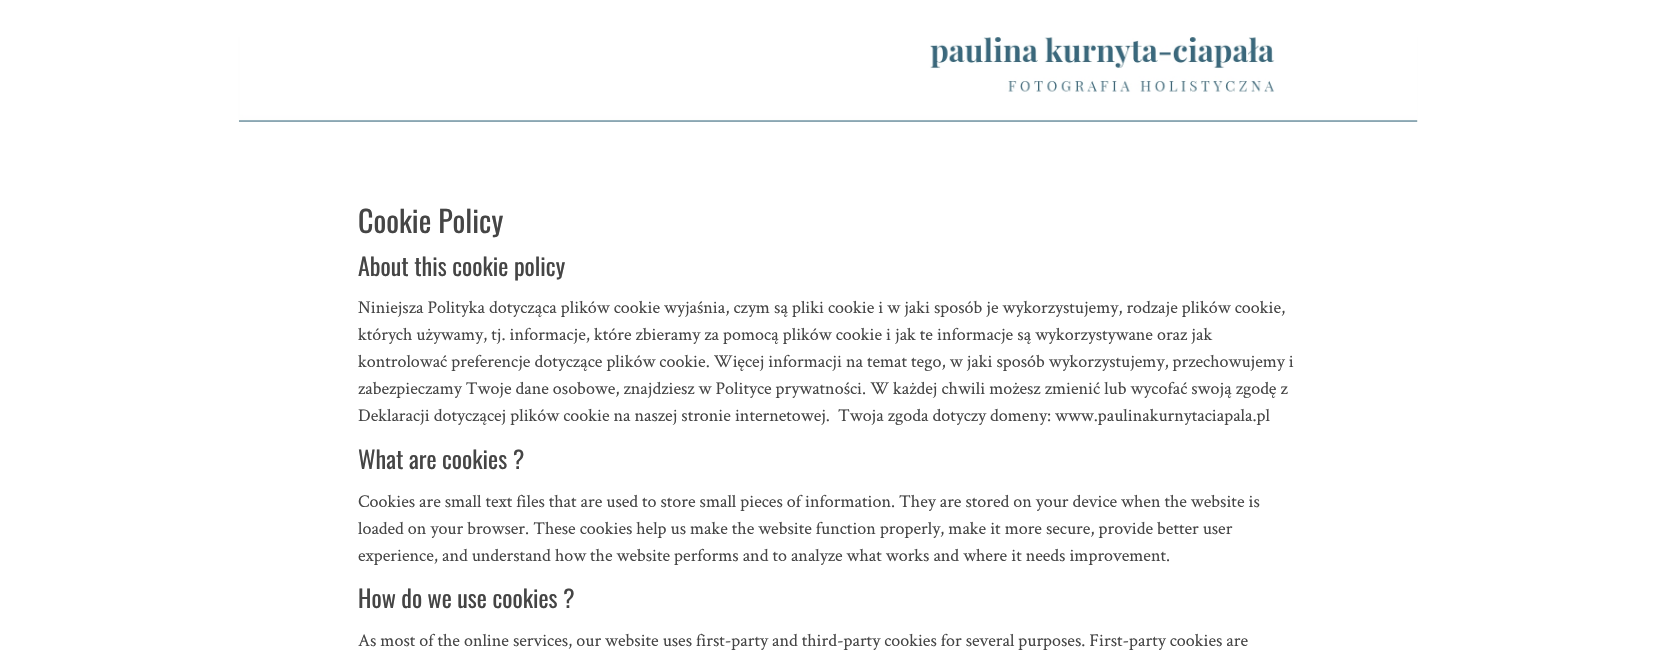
#include "include/core/SkBlurTypes.h"
#include "include/core/SkCanvas.h"
#include "include/core/SkData.h"
#include "include/core/SkFont.h"
#include "include/core/SkFontMgr.h"
#include "include/core/SkImage.h"
#include "include/core/SkMaskFilter.h"
#include "include/core/SkPaint.h"
#include "include/core/SkPathBuilder.h"
#include "include/core/SkTextBlob.h"
#include "include/effects/SkDashPathEffect.h"
#include "include/effects/SkGradientShader.h"
#include "include/utils/SkParsePath.h"

extern sk_sp<SkFontMgr> fontMgr;

void draw(SkCanvas* canvas) {
    SkPaint p;
    p.setAntiAlias(true);
    auto font = [&](const char* family, int weight, float size, bool italic = false) {
        SkFontStyle style(weight, SkFontStyle::kNormal_Width,
            italic ? SkFontStyle::kItalic_Slant : SkFontStyle::kUpright_Slant);
        SkFont result(fontMgr->matchFamilyStyle(family, style), size);
        result.setSubpixel(true);
        return result;
    };
    auto drawPhoto = [&](const char* path, float l, float t, float r, float b) {
        auto image = SkImages::DeferredFromEncodedData(SkData::MakeFromFileName(path));
        canvas->drawImageRect(image, SkRect::MakeLTRB(l, t, r, b), SkSamplingOptions());
    };
    canvas->clear(0xFFFFFFFF);
    drawPhoto("media/1.png", 238, 37, 1418, 122);
    auto font1 = font("Oswald", 400, 30);
    p.setColor(0xFF454545);
    canvas->drawString("Cookie Policy", 358, 233, font1, p);
    auto font2 = font("Oswald", 400, 24);
    canvas->drawString("About this cookie policy", 358, 276, font2, p);
    auto font3 = font("Crimson Text", 400, 18);
    {
        const struct { const char* s; float x, y; } items[] = {
            {"Niniejsza Polityka dotycząca plików cookie wyjaśnia, czym są pliki cookie i w jaki sposób je wykorzystujemy, rodzaje plików cookie,", 358, 313},
            {"których używamy, tj. informacje, które zbieramy za pomocą plików cookie i jak te informacje są wykorzystywane oraz jak", 358, 340},
            {"kontrolować preferencje dotyczące plików cookie. Więcej informacji na temat tego, w jaki sposób wykorzystujemy, przechowujemy i", 358, 367},
            {"zabezpieczamy Twoje dane osobowe, znajdziesz w Polityce prywatności. W każdej chwili możesz zmienić lub wycofać swoją zgodę z", 358, 394},
            {"Deklaracji dotyczącej plików cookie na naszej stronie internetowej.  Twoja zgoda dotyczy domeny: www.paulinakurnytaciapala.pl", 358, 421},
        };
        for (auto [s, x, y] : items) {
            canvas->drawString(s, x, y, font3, p);
        }
    }
    canvas->drawString("What are cookies ?", 358, 469, font2, p);
    {
        const struct { const char* s; float x, y; } items[] = {
            {"Cookies are small text files that are used to store small pieces of information. They are stored on your device when the website is", 358, 507},
            {"loaded on your browser. These cookies help us make the website function properly, make it more secure, provide better user", 358, 534},
            {"experience, and understand how the website performs and to analyze what works and where it needs improvement.", 358, 561},
        };
        for (auto [s, x, y] : items) {
            canvas->drawString(s, x, y, font3, p);
        }
    }
    canvas->drawString("How do we use cookies ?", 358, 608, font2, p);
    canvas->drawString("As most of the online services, our website uses first-party and third-party cookies for several purposes. First-party cookies are", 358, 646, font3, p);
}
